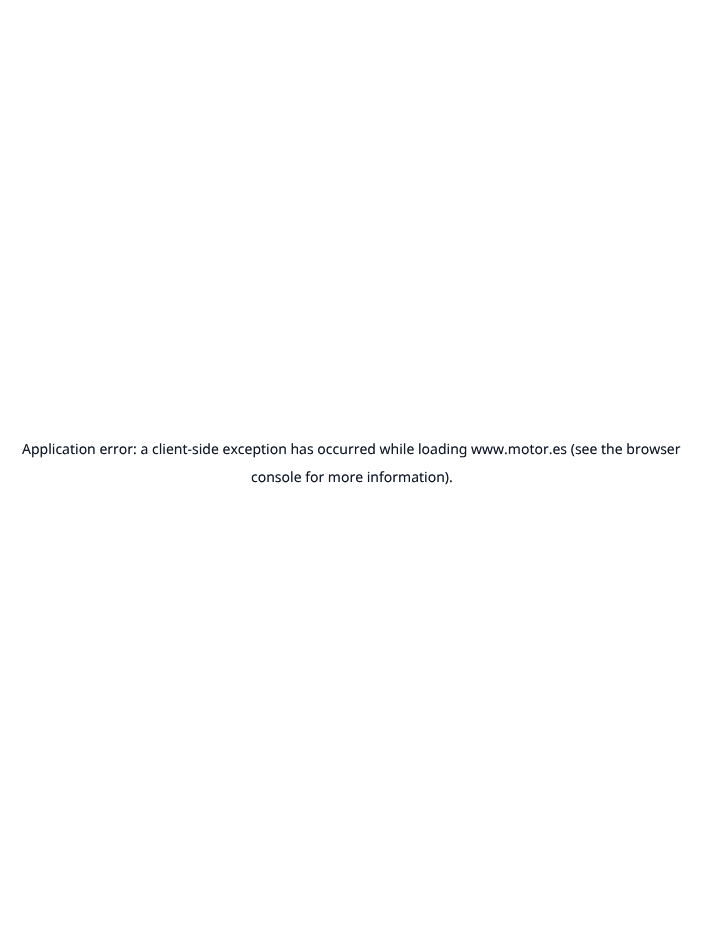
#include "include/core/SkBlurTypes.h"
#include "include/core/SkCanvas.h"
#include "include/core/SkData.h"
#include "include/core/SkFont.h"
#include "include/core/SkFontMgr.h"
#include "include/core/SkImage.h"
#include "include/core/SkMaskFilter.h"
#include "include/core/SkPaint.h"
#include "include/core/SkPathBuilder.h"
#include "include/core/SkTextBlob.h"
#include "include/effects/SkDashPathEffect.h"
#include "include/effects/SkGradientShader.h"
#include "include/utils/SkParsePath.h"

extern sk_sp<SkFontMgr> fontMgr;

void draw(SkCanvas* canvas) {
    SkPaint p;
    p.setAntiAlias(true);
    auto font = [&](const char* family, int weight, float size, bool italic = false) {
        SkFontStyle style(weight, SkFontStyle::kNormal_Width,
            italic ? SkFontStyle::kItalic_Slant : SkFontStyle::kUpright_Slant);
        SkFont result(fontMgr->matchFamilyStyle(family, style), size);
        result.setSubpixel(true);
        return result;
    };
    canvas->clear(0xFFFFFFFF);
    auto font1 = font("Noto Sans", 400, 14);
    p.setColor(0xFF101828);
    canvas->drawString("Application error: a client-side exception has occurred while loading www.motor.es (see the browser", 22, 454, font1, p);
    canvas->drawString("console for more information).", 251, 482, font1, p);
}
